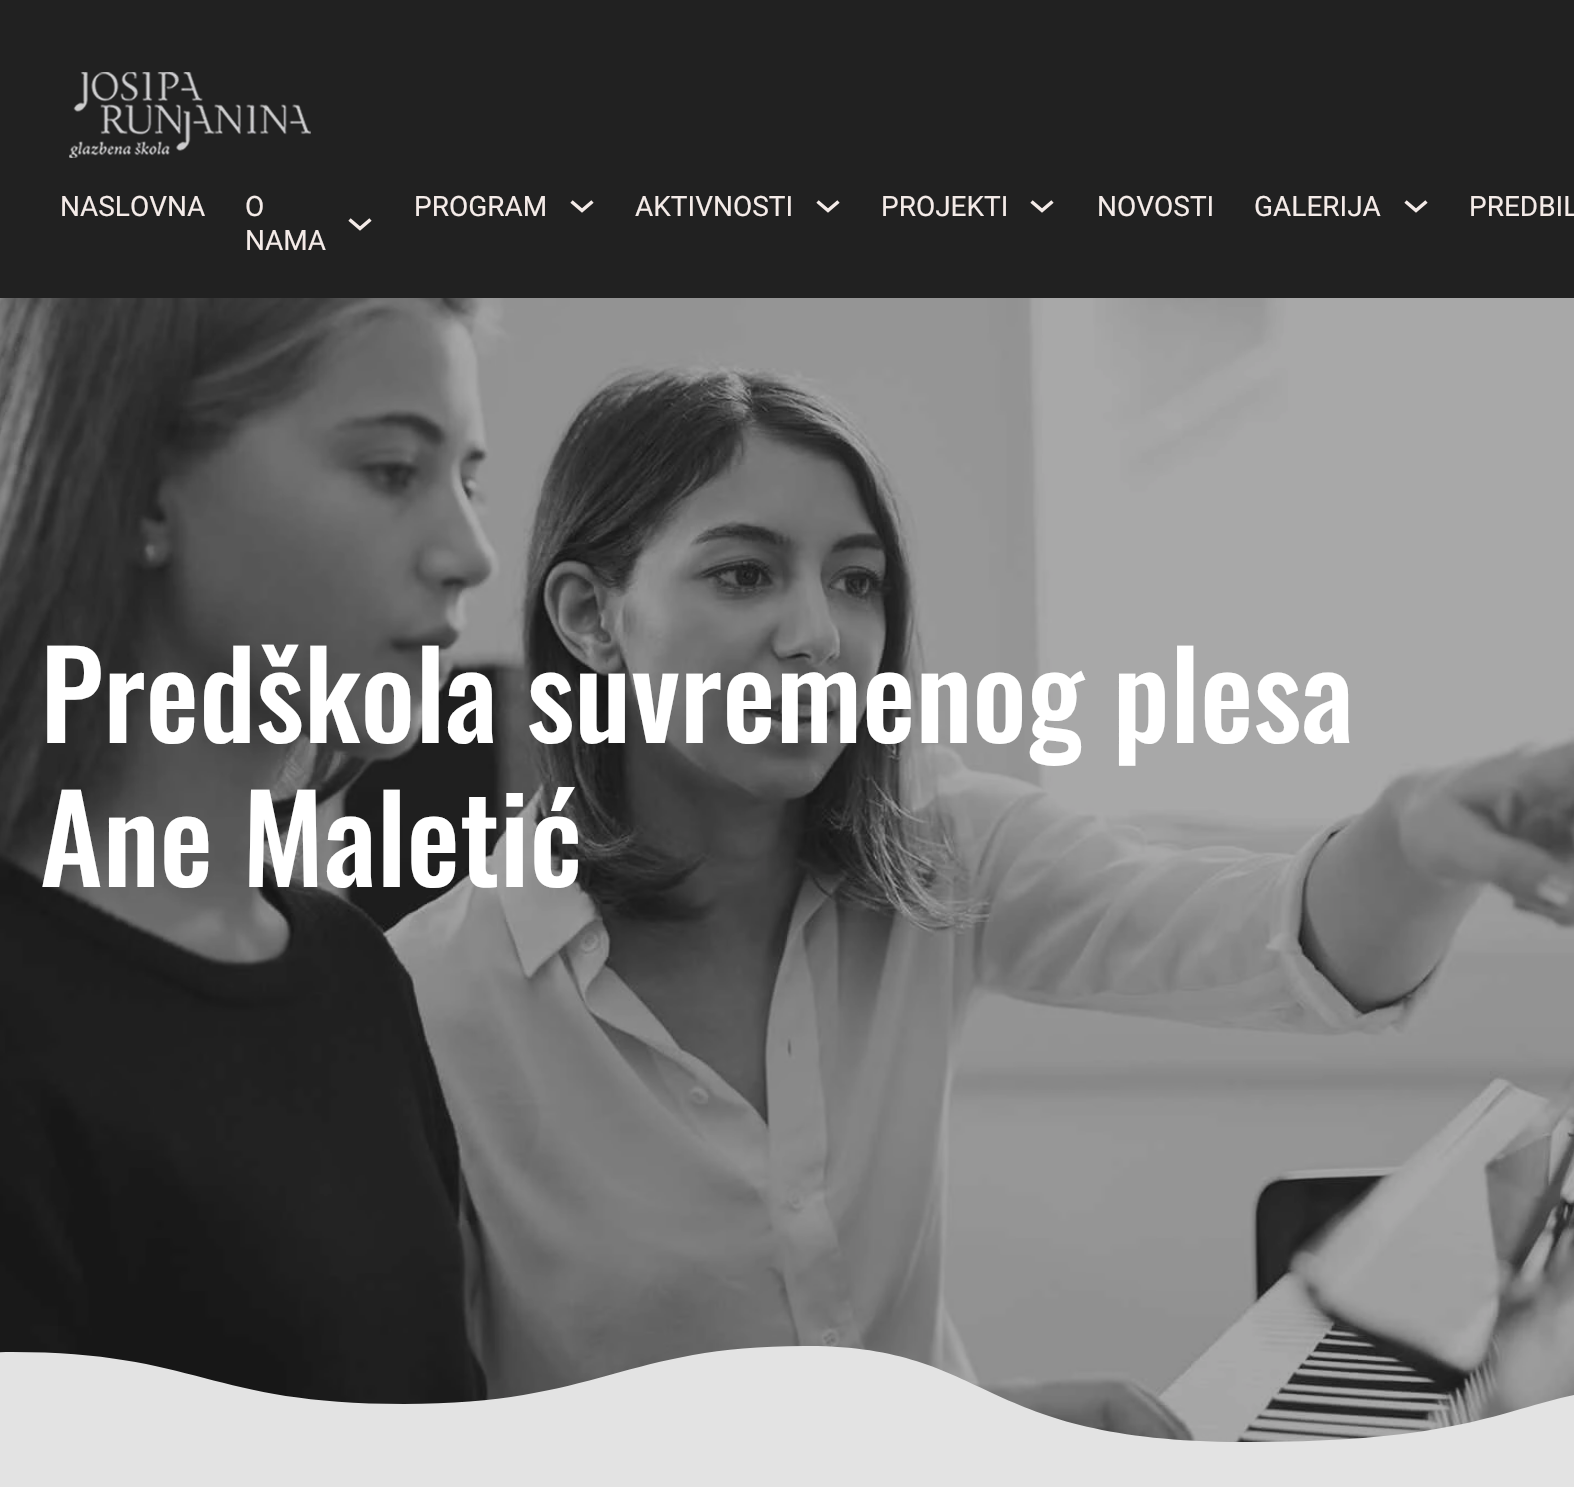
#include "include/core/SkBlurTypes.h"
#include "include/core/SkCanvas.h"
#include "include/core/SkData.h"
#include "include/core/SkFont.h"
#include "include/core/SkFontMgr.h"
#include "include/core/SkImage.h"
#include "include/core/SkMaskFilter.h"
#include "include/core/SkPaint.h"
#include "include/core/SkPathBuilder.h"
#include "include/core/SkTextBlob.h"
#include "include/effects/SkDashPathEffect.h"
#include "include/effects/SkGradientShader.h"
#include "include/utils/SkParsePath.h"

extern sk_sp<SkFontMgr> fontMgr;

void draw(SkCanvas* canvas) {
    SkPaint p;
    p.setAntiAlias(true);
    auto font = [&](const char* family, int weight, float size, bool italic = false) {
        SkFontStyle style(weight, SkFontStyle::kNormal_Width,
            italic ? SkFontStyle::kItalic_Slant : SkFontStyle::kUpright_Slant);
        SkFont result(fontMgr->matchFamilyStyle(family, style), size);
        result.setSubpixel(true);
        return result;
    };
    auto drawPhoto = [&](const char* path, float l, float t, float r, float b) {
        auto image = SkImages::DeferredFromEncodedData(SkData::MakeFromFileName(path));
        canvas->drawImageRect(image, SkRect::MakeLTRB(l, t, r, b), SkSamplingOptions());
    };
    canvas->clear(0xFF212121);
    drawPhoto("media/1.png", 69, 72, 311, 158);
    auto font1 = font("Roboto", 400, 28);
    p.setColor(0xFFF4EBE8);
    {
        const struct { const char* s; float x, y; } items[] = {
            {"NASLOVNA", 60, 216},
            {"O", 245, 216},
            {"NAMA", 245, 250},
        };
        for (auto [s, x, y] : items) {
            canvas->drawString(s, x, y, font1, p);
        }
    }
    p.setStyle(SkPaint::kStroke_Style);
    p.setStrokeWidth(3.5f);
    canvas->drawPath(SkPathBuilder().moveTo(349.5f, 219.5f).lineTo(360, 228.5f).lineTo(370.5f, 219.5f).detach(), p);
    p.setStyle(SkPaint::kFill_Style);
    canvas->drawString("PROGRAM", 414, 216, font1, p);
    p.setStyle(SkPaint::kStroke_Style);
    canvas->drawPath(SkPathBuilder().moveTo(571.5f, 201.5f).lineTo(582, 210.5f).lineTo(592.5f, 201.5f).detach(), p);
    p.setStyle(SkPaint::kFill_Style);
    canvas->drawString("AKTIVNOSTI", 635, 216, font1, p);
    p.setStyle(SkPaint::kStroke_Style);
    canvas->drawPath(SkPathBuilder().moveTo(817.5f, 201.5f).lineTo(828, 210.5f).lineTo(838.5f, 201.5f).detach(), p);
    p.setStyle(SkPaint::kFill_Style);
    canvas->drawString("PROJEKTI", 881, 216, font1, p);
    p.setStyle(SkPaint::kStroke_Style);
    canvas->drawPath(SkPathBuilder().moveTo(1031.5f, 201.5f).lineTo(1042, 210.5f).lineTo(1052.5f, 201.5f).detach(), p);
    p.setStyle(SkPaint::kFill_Style);
    canvas->drawString("NOVOSTI", 1097, 216, font1, p);
    canvas->drawString("GALERIJA", 1254, 216, font1, p);
    p.setStyle(SkPaint::kStroke_Style);
    canvas->drawPath(SkPathBuilder().moveTo(1405.5f, 201.5f).lineTo(1416, 210.5f).lineTo(1426.5f, 201.5f).detach(), p);
    p.setStyle(SkPaint::kFill_Style);
    canvas->drawString("PREDBIL", 1469, 216, font1, p);
    drawPhoto("media/2.png", 0, 298, 1574, 1442);
    auto font2 = font("Oswald", 500, 120);
    p.setColor(0xFFFFFFFF);
    canvas->drawString("Predškola suvremenog plesa", 40, 743, font2, p);
    canvas->drawString("Ane Maletić", 40, 887, font2, p);
    p.setColor(0xFFE3E3E3);
    canvas->drawPath(SkPathBuilder(SkPathFillType::kEvenOdd).moveTo(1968, 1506).cubicTo(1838, 1424, 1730, 1384, 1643, 1387).cubicTo(1514, 1391, 1510, 1443, 1242, 1442).cubicTo(974, 1441, 994, 1347, 809, 1346).cubicTo(624, 1345, 601, 1404, 404, 1404).cubicTo(207, 1404, 199, 1352, 12, 1352).cubicTo(-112, 1352, -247, 1403, -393, 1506).close().detach(), p);
}
